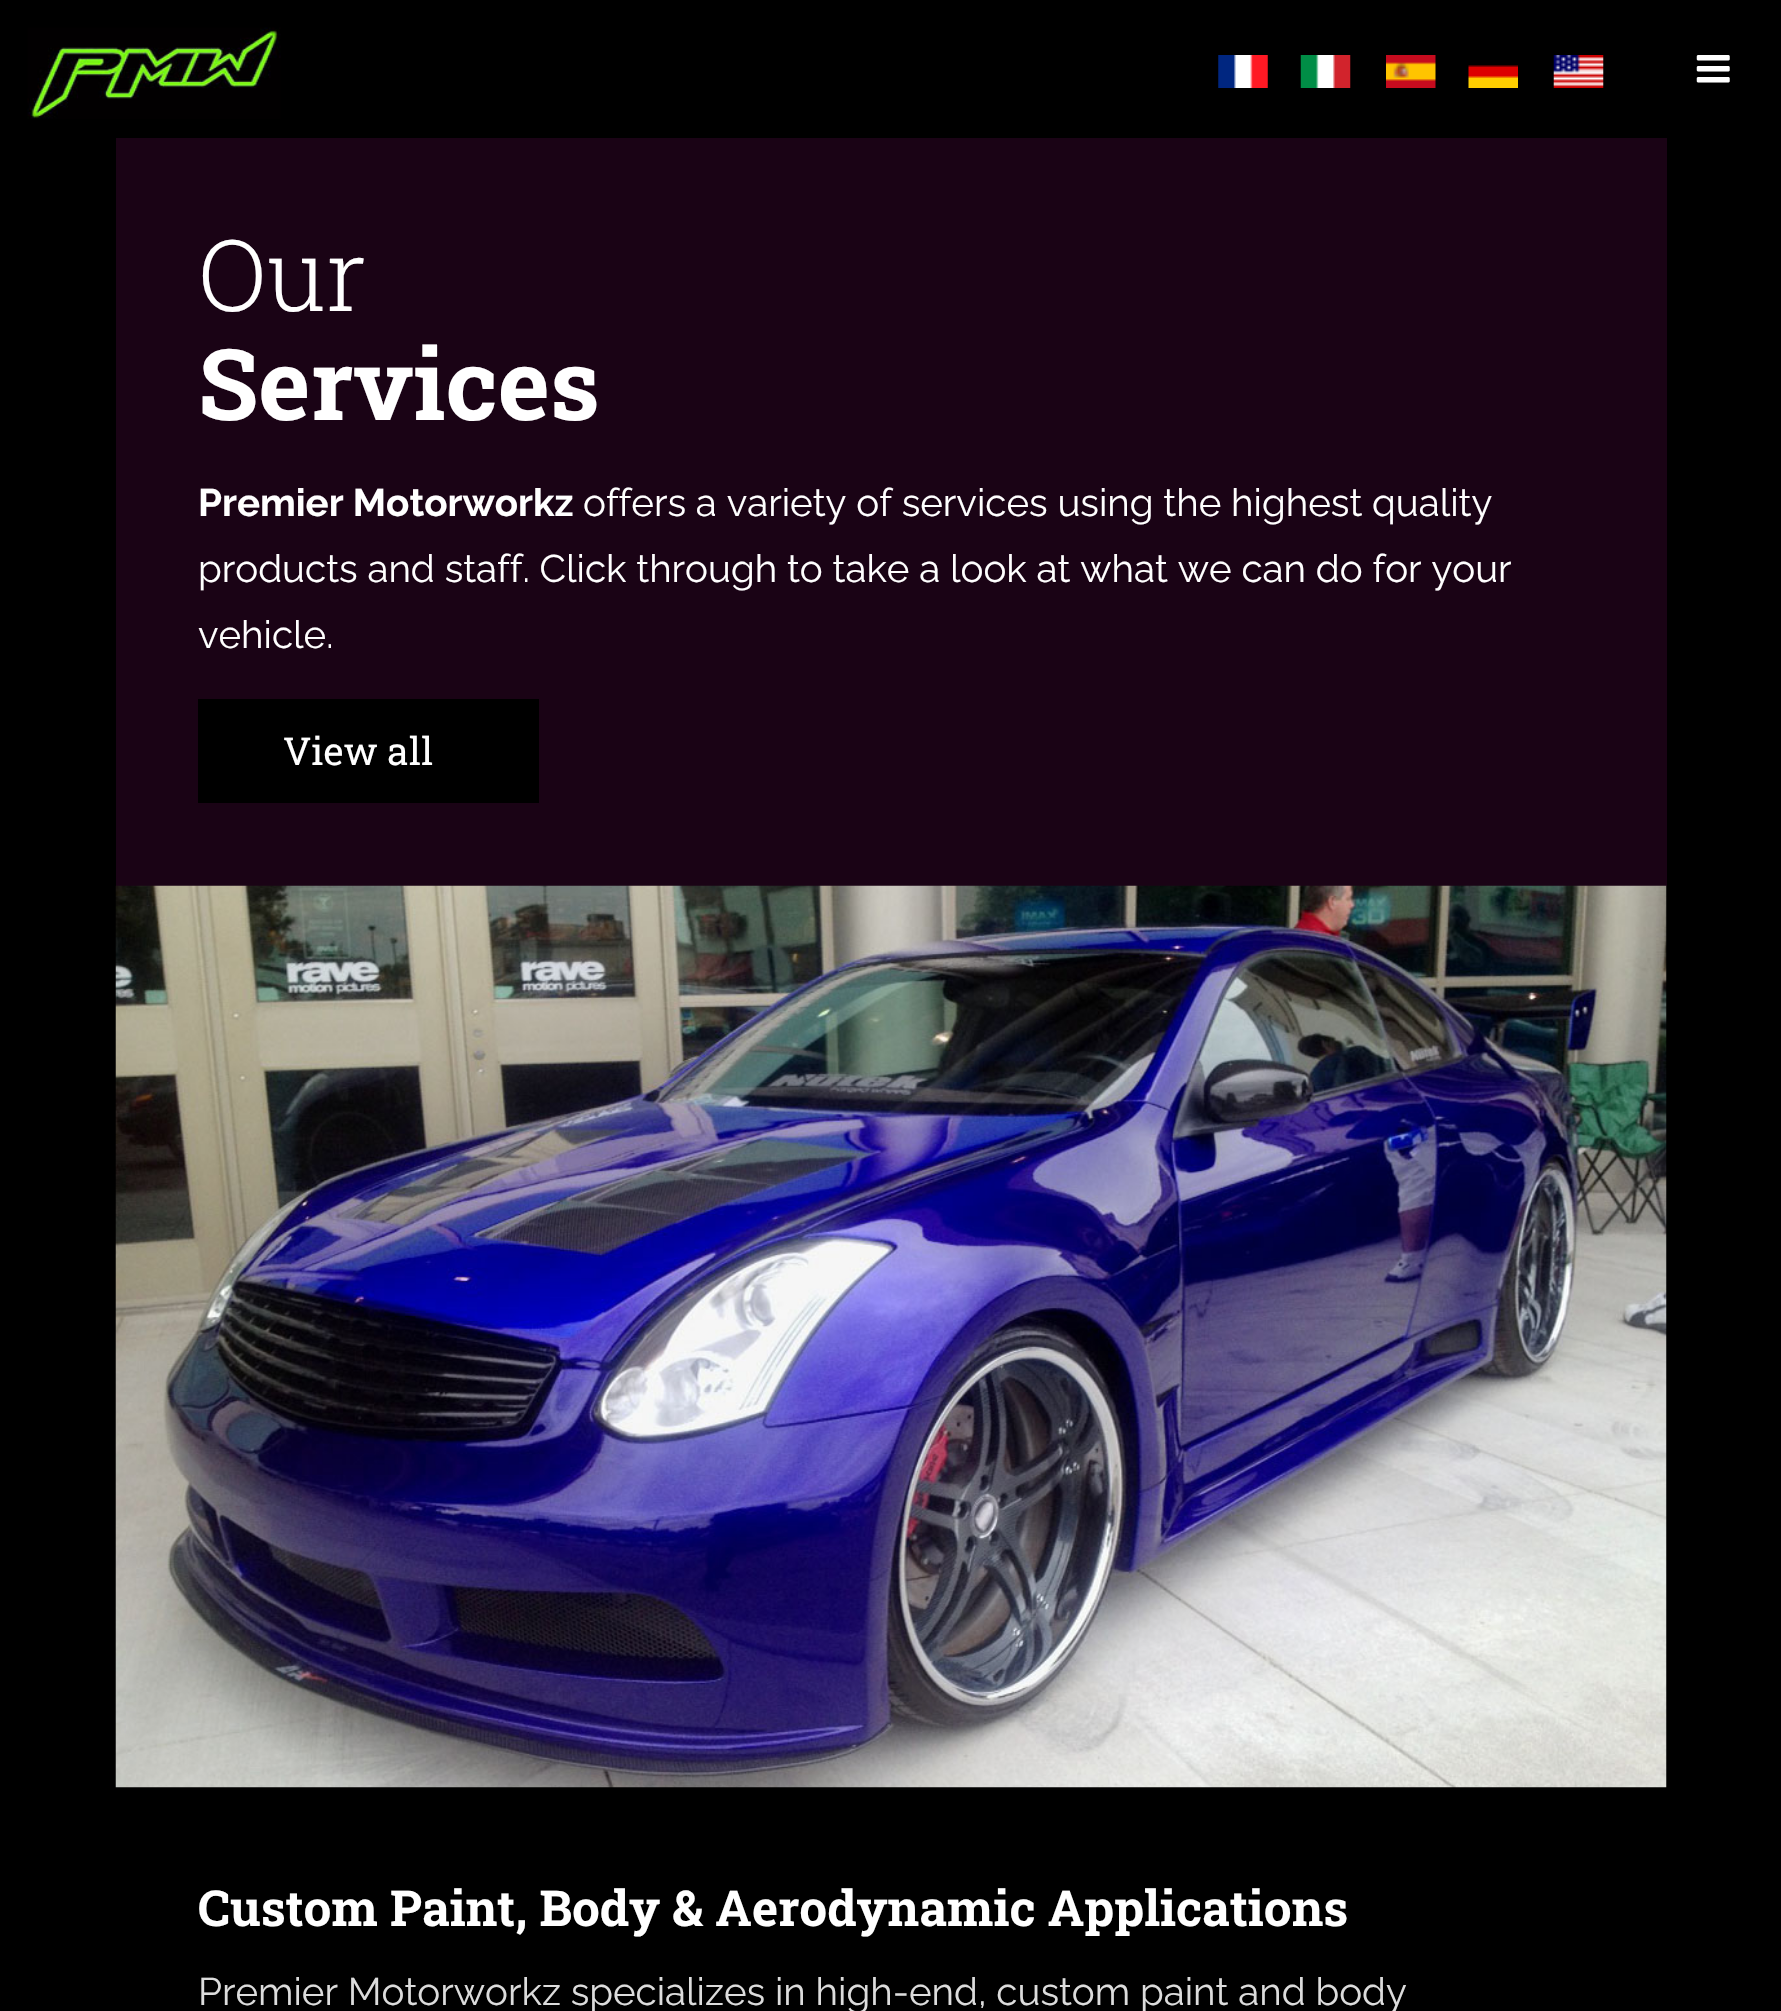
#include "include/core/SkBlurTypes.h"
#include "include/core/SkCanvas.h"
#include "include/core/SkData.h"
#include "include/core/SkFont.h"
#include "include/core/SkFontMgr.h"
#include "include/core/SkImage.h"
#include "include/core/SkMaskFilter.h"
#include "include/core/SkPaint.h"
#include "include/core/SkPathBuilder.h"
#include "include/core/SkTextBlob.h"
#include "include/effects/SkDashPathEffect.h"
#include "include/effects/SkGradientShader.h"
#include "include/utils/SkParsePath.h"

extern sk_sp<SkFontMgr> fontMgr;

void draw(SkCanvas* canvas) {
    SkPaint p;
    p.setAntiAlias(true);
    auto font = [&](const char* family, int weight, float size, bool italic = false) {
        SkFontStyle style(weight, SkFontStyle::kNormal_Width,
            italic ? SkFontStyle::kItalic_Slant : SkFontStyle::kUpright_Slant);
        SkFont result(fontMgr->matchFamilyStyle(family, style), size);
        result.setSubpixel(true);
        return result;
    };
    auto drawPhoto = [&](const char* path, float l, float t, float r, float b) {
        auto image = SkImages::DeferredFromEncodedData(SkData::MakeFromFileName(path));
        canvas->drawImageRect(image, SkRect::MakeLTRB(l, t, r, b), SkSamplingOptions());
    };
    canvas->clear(0xFF000000);
    drawPhoto("media/1.png", 27, 27, 281, 119);
    drawPhoto("media/2.png", 1218, 55, 1268, 88);
    drawPhoto("media/3.png", 1300, 55, 1351, 88);
    drawPhoto("media/4.png", 1386, 55, 1436, 88);
    drawPhoto("media/5.png", 1468, 65, 1518, 88);
    drawPhoto("media/6.png", 1553, 55, 1604, 88);
    drawPhoto("media/7.png", 1696, 55, 1730, 83);
    p.setColor(0xFF1A0315);
    canvas->drawRect(SkRect::MakeLTRB(116, 138, 1667, 886), p);
    auto font1 = font("Roboto Slab", 300, 99);
    p.setColor(0xFFFFFFFF);
    canvas->drawString("Our", 198, 311, font1, p);
    auto font2 = font("Roboto Slab", 700, 99);
    canvas->drawString("Services", 198, 420, font2, p);
    auto font3 = font("Raleway", 700, 38.5f);
    canvas->drawString("Premier Motorworkz", 198, 516, font3, p);
    auto font4 = font("Raleway", 400, 38.5f);
    {
        const struct { const char* s; float x, y; } items[] = {
            {"offers a variety of services using the highest quality", 583, 516},
            {"products and staff. Click through to take a look at what we can do for your", 198, 582},
            {"vehicle.", 198, 648},
        };
        for (auto [s, x, y] : items) {
            canvas->drawString(s, x, y, font4, p);
        }
    }
    p.setColor(0xFF000000);
    canvas->drawRect(SkRect::MakeLTRB(198, 699, 539, 803), p);
    auto font5 = font("Roboto Slab", 400, 38.5f);
    p.setColor(0xFFFFFFFF);
    canvas->drawString("View all", 283, 765, font5, p);
    drawPhoto("media/8.png", 115, 885, 1667, 1788);
    auto font6 = font("Roboto Slab", 700, 49.5f);
    canvas->drawString("Custom Paint, Body & Aerodynamic Applications", 198, 1926, font6, p);
    p.setColor(0xFFDCDCDC);
    canvas->drawString("Premier Motorworkz specializes in high-end, custom paint and body", 198, 2005, font4, p);
}
